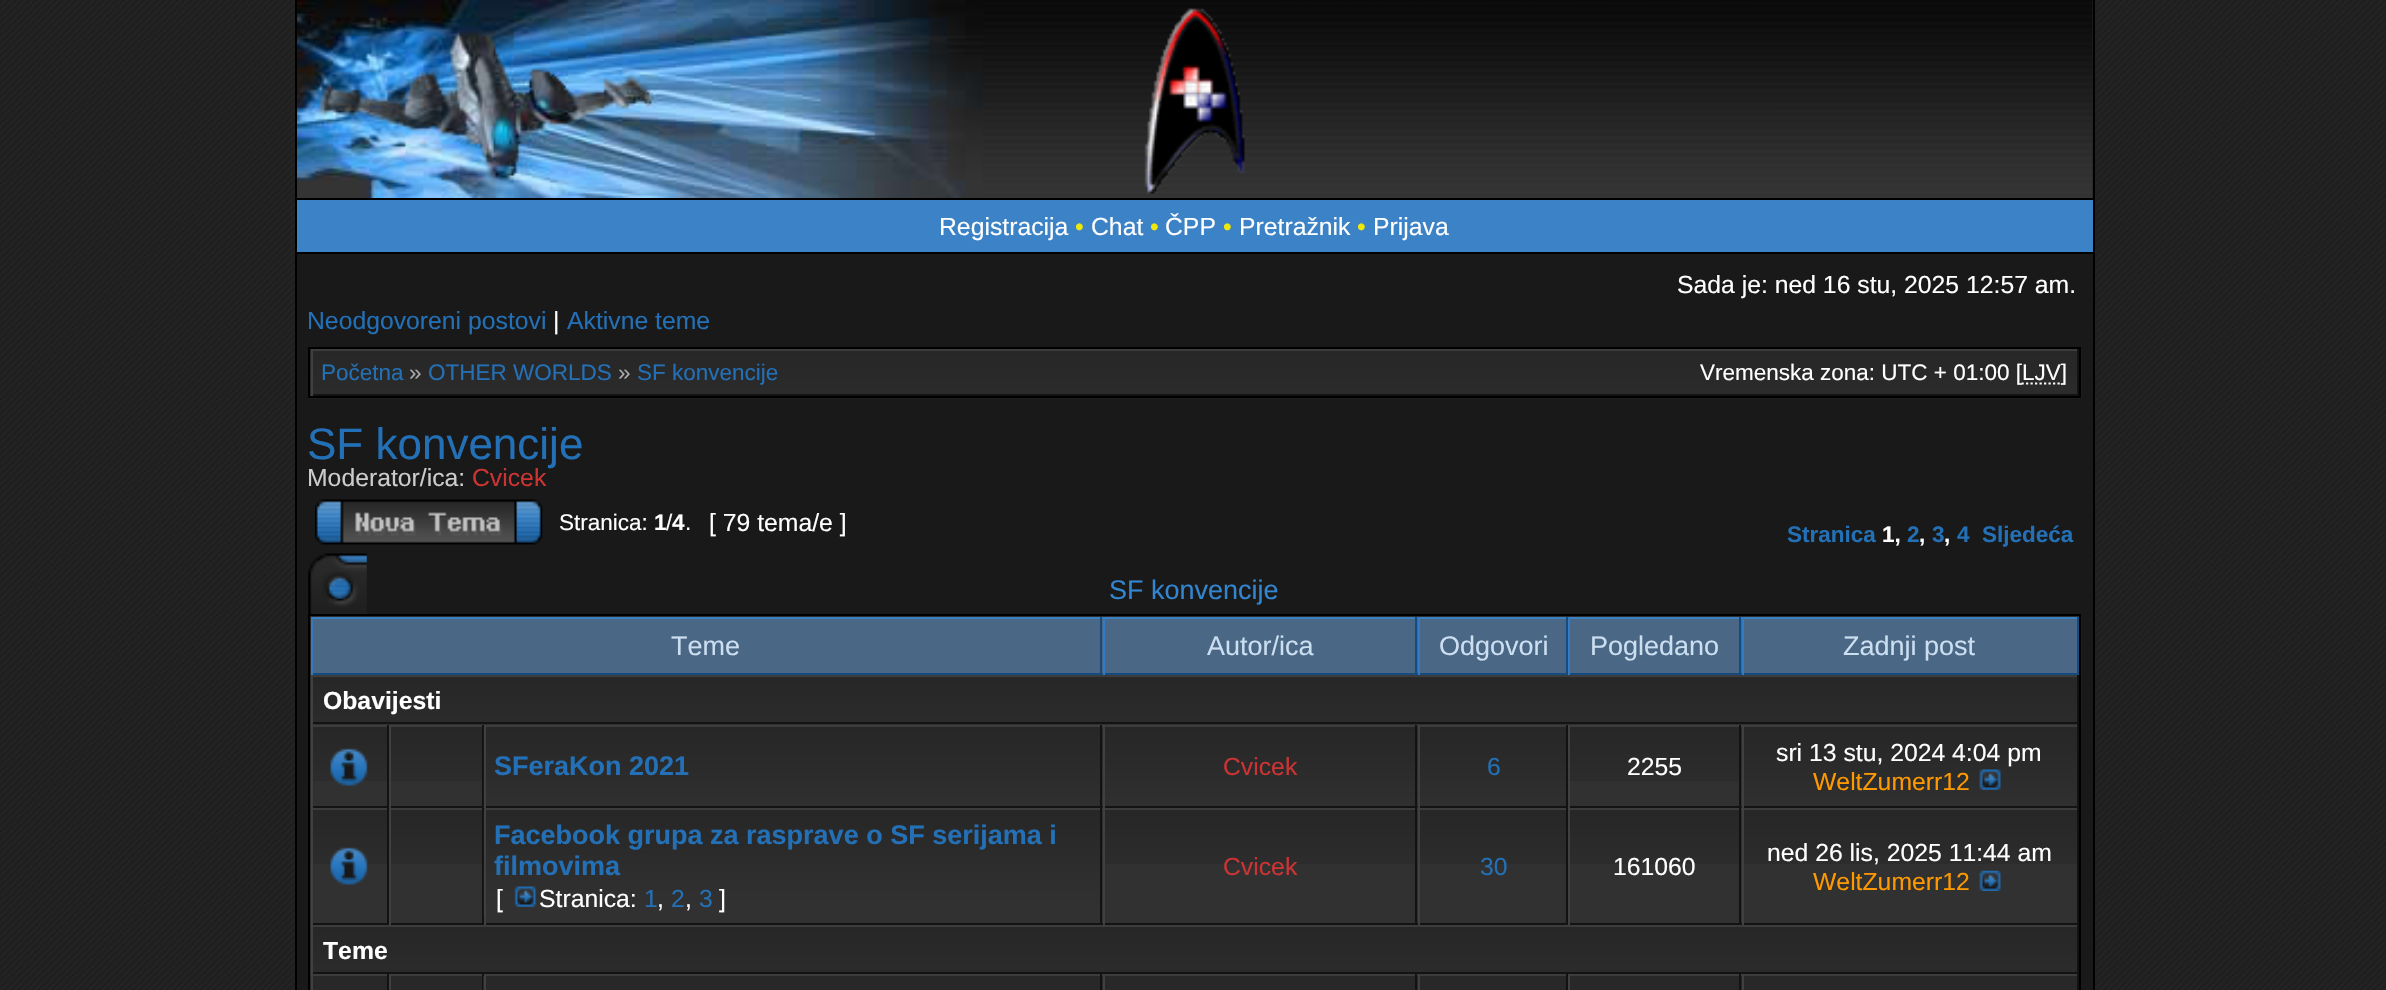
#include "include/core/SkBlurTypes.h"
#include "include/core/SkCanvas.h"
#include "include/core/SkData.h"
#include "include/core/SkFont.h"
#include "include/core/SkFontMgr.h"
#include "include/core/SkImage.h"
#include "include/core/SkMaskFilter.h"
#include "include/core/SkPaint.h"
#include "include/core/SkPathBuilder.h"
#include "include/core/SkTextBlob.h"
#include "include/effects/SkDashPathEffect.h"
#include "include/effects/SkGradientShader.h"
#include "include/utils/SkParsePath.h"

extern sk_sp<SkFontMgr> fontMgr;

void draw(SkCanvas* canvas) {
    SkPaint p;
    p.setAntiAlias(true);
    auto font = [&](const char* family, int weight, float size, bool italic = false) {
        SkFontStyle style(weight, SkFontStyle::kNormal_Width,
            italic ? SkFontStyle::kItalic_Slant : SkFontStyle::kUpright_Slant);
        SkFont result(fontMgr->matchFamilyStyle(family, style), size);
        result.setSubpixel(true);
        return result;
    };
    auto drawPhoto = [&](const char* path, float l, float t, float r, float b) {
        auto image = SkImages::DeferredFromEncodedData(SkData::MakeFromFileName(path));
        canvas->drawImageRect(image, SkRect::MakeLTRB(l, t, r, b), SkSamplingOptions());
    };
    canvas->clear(0xFFFFFFFF);
    drawPhoto("media/1.png", 0, 0, 2386, 990);
    p.setColor(0xFF000000);
    canvas->drawRect(SkRect::MakeLTRB(2093, 0, 2095, 990), p);
    canvas->drawRect(SkRect::MakeLTRB(295, 0, 297, 990), p);
    drawPhoto("media/2.png", 983, 0, 2093, 198);
    drawPhoto("media/3.png", 297, 0, 983, 198);
    drawPhoto("media/4.png", 1144, 8, 1245, 194);
    {
        const struct { float l, t, r, b; SkColor color; } items[] = {
            {297, 200, 2093, 252, 0xFF3B83C6},
            {297, 198, 2093, 200, 0xFF000000},
            {297, 252, 2093, 254, 0xFF000000},
        };
        for (auto [l, t, r, b, color] : items) {
            p.setColor(color);
            canvas->drawRect(SkRect::MakeLTRB(l, t, r, b), p);
        }
    }
    auto font1 = font("Liberation Sans", 400, 24.75f);
    p.setColor(0xFFFFFFFF);
    canvas->drawString("Registracija", 939, 235, font1, p);
    p.setColor(0xFFF0E80A);
    canvas->drawString("•", 1075, 235, font1, p);
    p.setColor(0xFFFFFFFF);
    canvas->drawString("Chat", 1091, 235, font1, p);
    p.setColor(0xFFF0E80A);
    canvas->drawString("•", 1150, 235, font1, p);
    p.setColor(0xFFFFFFFF);
    canvas->drawString("ČPP", 1165, 235, font1, p);
    p.setColor(0xFFF0E80A);
    canvas->drawString("•", 1223, 235, font1, p);
    p.setColor(0xFFFFFFFF);
    canvas->drawString("Pretražnik", 1239, 235, font1, p);
    p.setColor(0xFFF0E80A);
    canvas->drawString("•", 1357, 235, font1, p);
    p.setColor(0xFFFFFFFF);
    canvas->drawString("Prijava", 1373, 235, font1, p);
    p.setColor(0xFF191919);
    canvas->drawRect(SkRect::MakeLTRB(297, 254, 2093, 990), p);
    p.setColor(0xFFFFFFFF);
    canvas->drawString("Sada je: ned 16 stu, 2025 12:57 am.", 1677, 293, font1, p);
    p.setColor(0xFF2370B6);
    canvas->drawString("Neodgovoreni postovi", 307, 329, font1, p);
    p.setColor(0xFFFFFFFF);
    canvas->drawString("|", 553, 329, font1, p);
    p.setColor(0xFF2370B6);
    canvas->drawString("Aktivne teme", 567, 329, font1, p);
    drawPhoto("media/5.png", 308, 349, 2082, 399);
    p.setStyle(SkPaint::kStroke_Style);
    p.setStrokeWidth(2);
    p.setColor(0xFF000000);
    canvas->drawRect(SkRect::MakeLTRB(309, 348, 2080, 397), p);
    drawPhoto("media/6.png", 313, 351, 2077, 394);
    p.setStyle(SkPaint::kFill_Style);
    {
        const struct { float l, t, r, b; SkColor color; } items[] = {
            {311, 349, 2079, 351, 0xFF3C3C3C},
            {2077, 349, 2079, 396, 0xFF121212},
            {311, 394, 2079, 396, 0xFF131313},
            {311, 349, 313, 396, 0xFF404040},
        };
        for (auto [l, t, r, b, color] : items) {
            p.setColor(color);
            canvas->drawRect(SkRect::MakeLTRB(l, t, r, b), p);
        }
    }
    auto font2 = font("Liberation Sans", 400, 22.5f);
    p.setColor(0xFF2370B6);
    canvas->drawString("Početna", 321, 380, font2, p);
    p.setColor(0xFFAAAAAA);
    canvas->drawString("»", 409, 380, font2, p);
    p.setColor(0xFF2370B6);
    canvas->drawString("OTHER WORLDS", 428, 380, font2, p);
    p.setColor(0xFFAAAAAA);
    canvas->drawString("»", 618, 380, font2, p);
    p.setColor(0xFF2370B6);
    canvas->drawString("SF konvencije", 637, 380, font2, p);
    p.setColor(0xFFFFFFFF);
    canvas->drawString("Vremenska zona: UTC + 01:00 [LJV]", 1700, 380, font2, p);
    p.setStyle(SkPaint::kStroke_Style);
    p.setStrokeWidth(2.2f);
    p.setPathEffect(SkDashPathEffect::Make({{2.25f, 2.25f}}, 0));
    canvas->drawPath(SkPathBuilder().moveTo(2021.5f, 383.5f).lineTo(2060.5f, 383.5f).detach(), p);
    p.setPathEffect(nullptr);
    auto font3 = font("Liberation Sans", 400, 44);
    p.setStyle(SkPaint::kFill_Style);
    p.setColor(0xFF2370B6);
    canvas->drawString("SF konvencije", 307, 459, font3, p);
    p.setColor(0xFFCCCCCC);
    canvas->drawString("Moderator/ica:", 307, 486, font1, p);
    p.setColor(0xFFCC3333);
    canvas->drawString("Cvicek", 472, 486, font1, p);
    drawPhoto("media/7.png", 315, 499, 543, 545);
    p.setColor(0xFFFFFFFF);
    canvas->drawString("Stranica:", 559, 530, font2, p);
    auto font4 = font("Liberation Sans", 700, 22.5f);
    canvas->drawString("1", 654, 530, font4, p);
    canvas->drawString("/", 666, 530, font2, p);
    canvas->drawString("4", 672, 530, font4, p);
    canvas->drawString(".", 685, 530, font2, p);
    canvas->drawString("[ 79 tema/e ]", 709, 531, font1, p);
    p.setColor(0xFF2370B6);
    canvas->drawString("Stranica", 1787, 542, font4, p);
    p.setColor(0xFFFFFFFF);
    canvas->drawString("1,", 1882, 542, font4, p);
    p.setColor(0xFF2370B6);
    canvas->drawString("2", 1907, 542, font4, p);
    p.setColor(0xFFFFFFFF);
    canvas->drawString(",", 1919, 542, font4, p);
    p.setColor(0xFF2370B6);
    canvas->drawString("3", 1932, 542, font4, p);
    p.setColor(0xFFFFFFFF);
    canvas->drawString(",", 1944, 542, font4, p);
    p.setColor(0xFF2370B6);
    canvas->drawString("4", 1957, 542, font4, p);
    canvas->drawString("Sljedeća", 1982, 542, font4, p);
    drawPhoto("media/8.png", 308, 553, 367, 614);
    auto font5 = font("Liberation Sans", 400, 27);
    p.setColor(0xFF3285D0);
    canvas->drawString("SF konvencije", 1109, 599, font5, p);
    p.setColor(0xFF313131);
    canvas->drawRect(SkRect::MakeLTRB(310, 616, 2079, 976), p);
    drawPhoto("media/9.png", 310, 616, 2082, 722);
    p.setStyle(SkPaint::kStroke_Style);
    p.setStrokeWidth(2);
    p.setColor(0xFF000000);
    canvas->drawRect(SkRect::MakeLTRB(309, 615, 2080, 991), p);
    p.setStyle(SkPaint::kFill_Style);
    {
        const struct { float l, t, r, b; SkColor color; } items[] = {
            {313, 619, 1103, 673, 0xFF4A6786},
            {311, 617, 2079, 619, 0xFF3981C3},
            {1100, 617, 1102, 675, 0xFF164C7D},
            {311, 673, 1103, 675, 0xFF164C7D},
            {311, 617, 313, 675, 0xFF317CC2},
        };
        for (auto [l, t, r, b, color] : items) {
            p.setColor(color);
            canvas->drawRect(SkRect::MakeLTRB(l, t, r, b), p);
        }
    }
    p.setColor(0xFFCCDFF0);
    canvas->drawString("Teme", 671, 655, font5, p);
    {
        const struct { float l, t, r, b; SkColor color; } items[] = {
            {1105, 619, 1418, 673, 0xFF4A6786},
            {1415, 617, 1417, 675, 0xFF164C7D},
            {1103, 673, 1418, 675, 0xFF164C7D},
            {1103, 617, 1105, 675, 0xFF317CC2},
        };
        for (auto [l, t, r, b, color] : items) {
            p.setColor(color);
            canvas->drawRect(SkRect::MakeLTRB(l, t, r, b), p);
        }
    }
    p.setColor(0xFFCCDFF0);
    canvas->drawString("Autor/ica", 1207, 655, font5, p);
    {
        const struct { float l, t, r, b; SkColor color; } items[] = {
            {1420, 619, 1566, 673, 0xFF4A6786},
            {1566, 617, 1568, 675, 0xFF164C7D},
            {1418, 673, 1568, 675, 0xFF164C7D},
            {1418, 617, 1420, 675, 0xFF317CC2},
        };
        for (auto [l, t, r, b, color] : items) {
            p.setColor(color);
            canvas->drawRect(SkRect::MakeLTRB(l, t, r, b), p);
        }
    }
    p.setColor(0xFFCCDFF0);
    canvas->drawString("Odgovori", 1439, 655, font5, p);
    {
        const struct { float l, t, r, b; SkColor color; } items[] = {
            {1570, 619, 1742, 673, 0xFF4A6786},
            {1739, 617, 1741, 675, 0xFF164C7D},
            {1568, 673, 1742, 675, 0xFF164C7D},
            {1568, 617, 1570, 675, 0xFF317CC2},
        };
        for (auto [l, t, r, b, color] : items) {
            p.setColor(color);
            canvas->drawRect(SkRect::MakeLTRB(l, t, r, b), p);
        }
    }
    p.setColor(0xFFCCDFF0);
    canvas->drawString("Pogledano", 1590, 655, font5, p);
    {
        const struct { float l, t, r, b; SkColor color; } items[] = {
            {1744, 619, 2077, 673, 0xFF4A6786},
            {2077, 617, 2079, 675, 0xFF164C7D},
            {1742, 673, 2079, 675, 0xFF164C7D},
            {1742, 617, 1744, 675, 0xFF317CC2},
        };
        for (auto [l, t, r, b, color] : items) {
            p.setColor(color);
            canvas->drawRect(SkRect::MakeLTRB(l, t, r, b), p);
        }
    }
    p.setColor(0xFFCCDFF0);
    canvas->drawString("Zadnji post", 1843, 655, font5, p);
    p.setColor(0xFF313131);
    canvas->drawRect(SkRect::MakeLTRB(313, 677, 2077, 686), p);
    drawPhoto("media/10.png", 313, 677, 2077, 722);
    {
        const struct { float l, t, r, b; SkColor color; } items[] = {
            {311, 675, 2079, 677, 0xFF3C3C3C},
            {2077, 675, 2079, 725, 0xFF121212},
            {311, 722, 2079, 724, 0xFF131313},
            {311, 675, 313, 725, 0xFF404040},
        };
        for (auto [l, t, r, b, color] : items) {
            p.setColor(color);
            canvas->drawRect(SkRect::MakeLTRB(l, t, r, b), p);
        }
    }
    auto font6 = font("Liberation Sans", 700, 24.75f);
    p.setColor(0xFFFFFFFF);
    canvas->drawString("Obavijesti", 323, 709, font6, p);
    drawPhoto("media/11.png", 310, 727, 387, 781);
    {
        const struct { float l, t, r, b; SkColor color; } items[] = {
            {311, 725, 2079, 727, 0xFF3C3C3C},
            {387, 725, 389, 808, 0xFF121212},
            {311, 806, 389, 808, 0xFF131313},
            {311, 725, 313, 808, 0xFF404040},
        };
        for (auto [l, t, r, b, color] : items) {
            p.setColor(color);
            canvas->drawRect(SkRect::MakeLTRB(l, t, r, b), p);
        }
    }
    drawPhoto("media/12.png", 330, 748, 368, 786);
    drawPhoto("media/13.png", 391, 727, 482, 781);
    {
        const struct { float l, t, r, b; SkColor color; } items[] = {
            {482, 725, 484, 808, 0xFF121212},
            {389, 806, 484, 808, 0xFF131313},
            {389, 725, 391, 808, 0xFF404040},
        };
        for (auto [l, t, r, b, color] : items) {
            p.setColor(color);
            canvas->drawRect(SkRect::MakeLTRB(l, t, r, b), p);
        }
    }
    drawPhoto("media/14.png", 483, 727, 1103, 808);
    {
        const struct { float l, t, r, b; SkColor color; } items[] = {
            {1100, 725, 1102, 808, 0xFF121212},
            {484, 806, 1103, 808, 0xFF131313},
            {484, 725, 486, 808, 0xFF404040},
        };
        for (auto [l, t, r, b, color] : items) {
            p.setColor(color);
            canvas->drawRect(SkRect::MakeLTRB(l, t, r, b), p);
        }
    }
    auto font7 = font("Liberation Sans", 700, 27);
    p.setColor(0xFF2370B6);
    canvas->drawString("SFeraKon 2021", 494, 775, font7, p);
    drawPhoto("media/15.png", 1102, 727, 1418, 808);
    {
        const struct { float l, t, r, b; SkColor color; } items[] = {
            {1415, 725, 1417, 808, 0xFF121212},
            {1103, 806, 1418, 808, 0xFF131313},
            {1103, 725, 1105, 808, 0xFF404040},
        };
        for (auto [l, t, r, b, color] : items) {
            p.setColor(color);
            canvas->drawRect(SkRect::MakeLTRB(l, t, r, b), p);
        }
    }
    p.setColor(0xFFCC3333);
    canvas->drawString("Cvicek", 1223, 775, font1, p);
    drawPhoto("media/16.png", 1417, 727, 1566, 808);
    {
        const struct { float l, t, r, b; SkColor color; } items[] = {
            {1566, 725, 1568, 808, 0xFF121212},
            {1418, 806, 1568, 808, 0xFF131313},
            {1418, 725, 1420, 808, 0xFF404040},
        };
        for (auto [l, t, r, b, color] : items) {
            p.setColor(color);
            canvas->drawRect(SkRect::MakeLTRB(l, t, r, b), p);
        }
    }
    p.setColor(0xFF2370B6);
    canvas->drawString("6", 1487, 775, font1, p);
    drawPhoto("media/17.png", 1570, 727, 1742, 781);
    {
        const struct { float l, t, r, b; SkColor color; } items[] = {
            {1739, 725, 1741, 808, 0xFF121212},
            {1568, 806, 1742, 808, 0xFF131313},
            {1568, 725, 1570, 808, 0xFF404040},
        };
        for (auto [l, t, r, b, color] : items) {
            p.setColor(color);
            canvas->drawRect(SkRect::MakeLTRB(l, t, r, b), p);
        }
    }
    p.setColor(0xFFFFFFFF);
    canvas->drawString("2255", 1627, 775, font1, p);
    drawPhoto("media/18.png", 1741, 727, 2077, 808);
    {
        const struct { float l, t, r, b; SkColor color; } items[] = {
            {2077, 725, 2079, 808, 0xFF121212},
            {1742, 806, 2079, 808, 0xFF131313},
            {1742, 725, 1744, 808, 0xFF404040},
        };
        for (auto [l, t, r, b, color] : items) {
            p.setColor(color);
            canvas->drawRect(SkRect::MakeLTRB(l, t, r, b), p);
        }
    }
    p.setColor(0xFFFFFFFF);
    canvas->drawString("sri 13 stu, 2024 4:04 pm", 1776, 761, font1, p);
    p.setColor(0xFFFF9900);
    canvas->drawString("WeltZumerr12", 1813, 790, font1, p);
    drawPhoto("media/19.png", 1979, 769, 2001, 790);
    drawPhoto("media/20.png", 310, 810, 387, 864);
    {
        const struct { float l, t, r, b; SkColor color; } items[] = {
            {311, 808, 2079, 810, 0xFF3C3C3C},
            {387, 808, 389, 925, 0xFF121212},
            {311, 923, 389, 925, 0xFF131313},
            {311, 808, 313, 925, 0xFF404040},
        };
        for (auto [l, t, r, b, color] : items) {
            p.setColor(color);
            canvas->drawRect(SkRect::MakeLTRB(l, t, r, b), p);
        }
    }
    drawPhoto("media/21.png", 330, 847, 368, 885);
    drawPhoto("media/22.png", 391, 810, 482, 864);
    {
        const struct { float l, t, r, b; SkColor color; } items[] = {
            {482, 808, 484, 925, 0xFF121212},
            {389, 923, 484, 925, 0xFF131313},
            {389, 808, 391, 925, 0xFF404040},
        };
        for (auto [l, t, r, b, color] : items) {
            p.setColor(color);
            canvas->drawRect(SkRect::MakeLTRB(l, t, r, b), p);
        }
    }
    drawPhoto("media/23.png", 483, 810, 1103, 916);
    {
        const struct { float l, t, r, b; SkColor color; } items[] = {
            {1100, 808, 1102, 925, 0xFF121212},
            {484, 923, 1103, 925, 0xFF131313},
            {484, 808, 486, 925, 0xFF404040},
        };
        for (auto [l, t, r, b, color] : items) {
            p.setColor(color);
            canvas->drawRect(SkRect::MakeLTRB(l, t, r, b), p);
        }
    }
    p.setColor(0xFF2370B6);
    canvas->drawString("Facebook grupa za rasprave o SF serijama i", 494, 844, font7, p);
    canvas->drawString("filmovima", 494, 875, font7, p);
    p.setColor(0xFFFFFFFF);
    canvas->drawString("[", 496, 907, font1, p);
    drawPhoto("media/24.png", 514, 886, 537, 907);
    canvas->drawString("Stranica:", 539, 907, font1, p);
    p.setColor(0xFF2370B6);
    canvas->drawString("1", 644, 907, font1, p);
    p.setColor(0xFFFFFFFF);
    canvas->drawString(",", 657, 907, font1, p);
    p.setColor(0xFF2370B6);
    canvas->drawString("2", 671, 907, font1, p);
    p.setColor(0xFFFFFFFF);
    canvas->drawString(",", 685, 907, font1, p);
    p.setColor(0xFF2370B6);
    canvas->drawString("3", 699, 907, font1, p);
    p.setColor(0xFFFFFFFF);
    canvas->drawString("]", 719, 907, font1, p);
    drawPhoto("media/25.png", 1105, 810, 1418, 864);
    {
        const struct { float l, t, r, b; SkColor color; } items[] = {
            {1415, 808, 1417, 925, 0xFF121212},
            {1103, 923, 1418, 925, 0xFF131313},
            {1103, 808, 1105, 925, 0xFF404040},
        };
        for (auto [l, t, r, b, color] : items) {
            p.setColor(color);
            canvas->drawRect(SkRect::MakeLTRB(l, t, r, b), p);
        }
    }
    p.setColor(0xFFCC3333);
    canvas->drawString("Cvicek", 1223, 875, font1, p);
    drawPhoto("media/26.png", 1420, 810, 1566, 864);
    {
        const struct { float l, t, r, b; SkColor color; } items[] = {
            {1566, 808, 1568, 925, 0xFF121212},
            {1418, 923, 1568, 925, 0xFF131313},
            {1418, 808, 1420, 925, 0xFF404040},
        };
        for (auto [l, t, r, b, color] : items) {
            p.setColor(color);
            canvas->drawRect(SkRect::MakeLTRB(l, t, r, b), p);
        }
    }
    p.setColor(0xFF2370B6);
    canvas->drawString("30", 1480, 875, font1, p);
    drawPhoto("media/27.png", 1570, 810, 1742, 864);
    {
        const struct { float l, t, r, b; SkColor color; } items[] = {
            {1739, 808, 1741, 925, 0xFF121212},
            {1568, 923, 1742, 925, 0xFF131313},
            {1568, 808, 1570, 925, 0xFF404040},
        };
        for (auto [l, t, r, b, color] : items) {
            p.setColor(color);
            canvas->drawRect(SkRect::MakeLTRB(l, t, r, b), p);
        }
    }
    p.setColor(0xFFFFFFFF);
    canvas->drawString("161060", 1613, 875, font1, p);
    drawPhoto("media/28.png", 1744, 810, 2077, 864);
    {
        const struct { float l, t, r, b; SkColor color; } items[] = {
            {2077, 808, 2079, 925, 0xFF121212},
            {1742, 923, 2079, 925, 0xFF131313},
            {1742, 808, 1744, 925, 0xFF404040},
        };
        for (auto [l, t, r, b, color] : items) {
            p.setColor(color);
            canvas->drawRect(SkRect::MakeLTRB(l, t, r, b), p);
        }
    }
    p.setColor(0xFFFFFFFF);
    canvas->drawString("ned 26 lis, 2025 11:44 am", 1767, 861, font1, p);
    p.setColor(0xFFFF9900);
    canvas->drawString("WeltZumerr12", 1813, 890, font1, p);
    drawPhoto("media/29.png", 1979, 870, 2001, 891);
    drawPhoto("media/30.png", 310, 927, 2077, 974);
    {
        const struct { float l, t, r, b; SkColor color; } items[] = {
            {311, 925, 2079, 927, 0xFF3C3C3C},
            {2077, 925, 2079, 974, 0xFF121212},
            {311, 972, 2079, 974, 0xFF131313},
            {311, 925, 313, 974, 0xFF404040},
        };
        for (auto [l, t, r, b, color] : items) {
            p.setColor(color);
            canvas->drawRect(SkRect::MakeLTRB(l, t, r, b), p);
        }
    }
    p.setColor(0xFFFFFFFF);
    canvas->drawString("Teme", 323, 959, font6, p);
    {
        const struct { float l, t, r, b; SkColor color; } items[] = {
            {310, 976, 387, 990, 0xFF282828},
            {311, 974, 2079, 976, 0xFF3C3C3C},
            {387, 974, 389, 990, 0xFF121212},
            {311, 974, 313, 990, 0xFF404040},
            {391, 976, 482, 990, 0xFF282828},
            {482, 974, 484, 990, 0xFF121212},
            {389, 974, 391, 990, 0xFF404040},
            {483, 976, 1103, 990, 0xFF282828},
            {1100, 974, 1102, 990, 0xFF121212},
            {484, 974, 486, 990, 0xFF404040},
            {1105, 976, 1418, 990, 0xFF282828},
            {1415, 974, 1417, 990, 0xFF121212},
            {1103, 974, 1105, 990, 0xFF404040},
            {1420, 976, 1566, 990, 0xFF282828},
            {1566, 974, 1568, 990, 0xFF121212},
            {1418, 974, 1420, 990, 0xFF404040},
            {1570, 976, 1742, 990, 0xFF282828},
            {1739, 974, 1741, 990, 0xFF121212},
            {1568, 974, 1570, 990, 0xFF404040},
            {1744, 976, 2077, 990, 0xFF282828},
            {2077, 974, 2079, 990, 0xFF121212},
            {1742, 974, 1744, 990, 0xFF404040},
        };
        for (auto [l, t, r, b, color] : items) {
            p.setColor(color);
            canvas->drawRect(SkRect::MakeLTRB(l, t, r, b), p);
        }
    }
}
